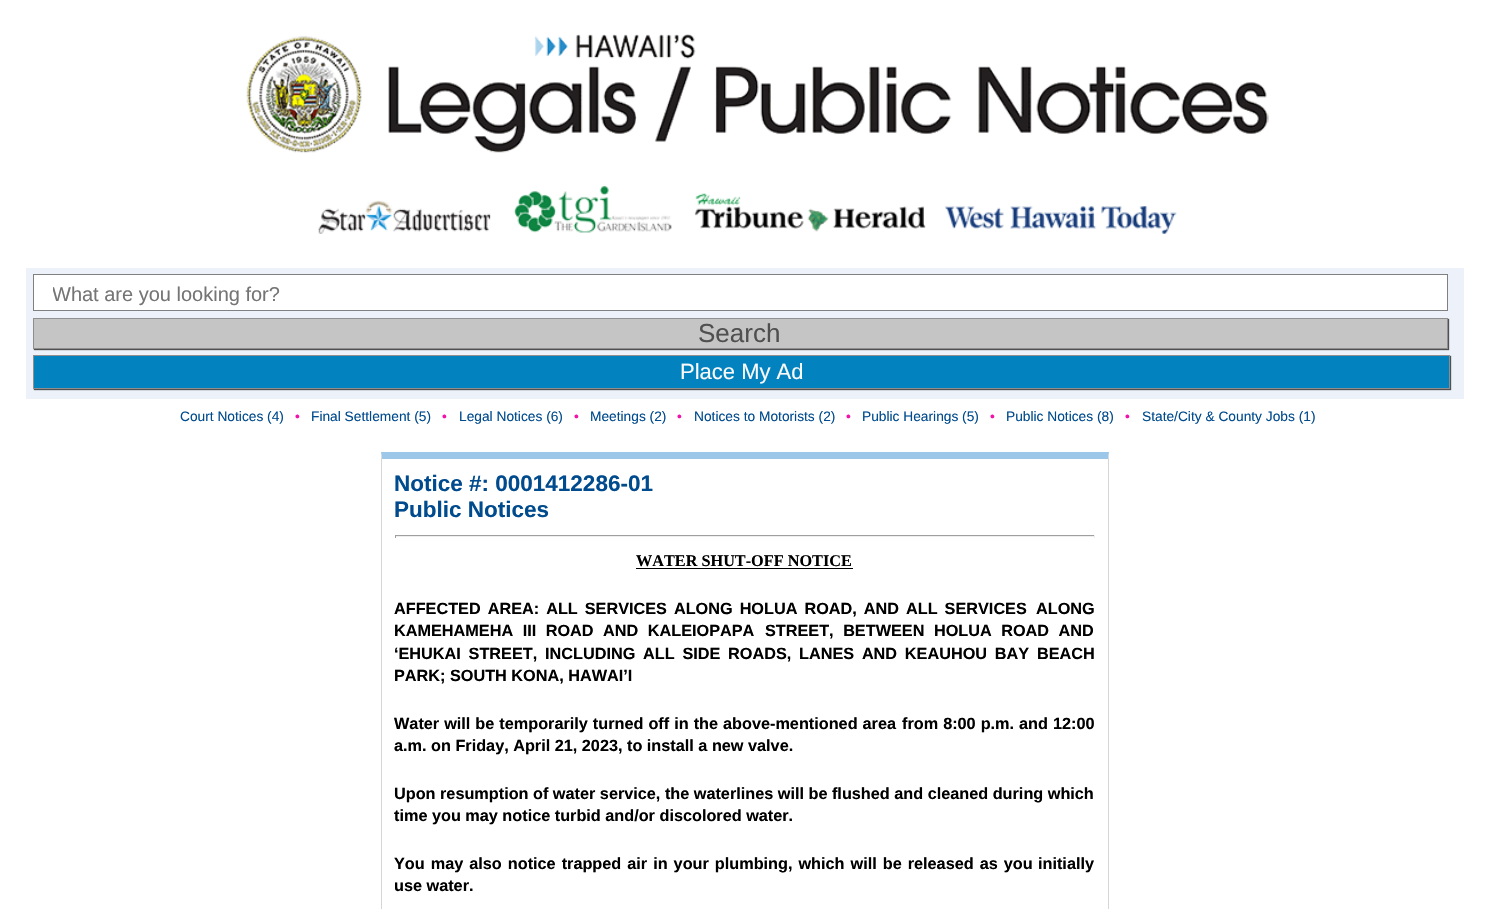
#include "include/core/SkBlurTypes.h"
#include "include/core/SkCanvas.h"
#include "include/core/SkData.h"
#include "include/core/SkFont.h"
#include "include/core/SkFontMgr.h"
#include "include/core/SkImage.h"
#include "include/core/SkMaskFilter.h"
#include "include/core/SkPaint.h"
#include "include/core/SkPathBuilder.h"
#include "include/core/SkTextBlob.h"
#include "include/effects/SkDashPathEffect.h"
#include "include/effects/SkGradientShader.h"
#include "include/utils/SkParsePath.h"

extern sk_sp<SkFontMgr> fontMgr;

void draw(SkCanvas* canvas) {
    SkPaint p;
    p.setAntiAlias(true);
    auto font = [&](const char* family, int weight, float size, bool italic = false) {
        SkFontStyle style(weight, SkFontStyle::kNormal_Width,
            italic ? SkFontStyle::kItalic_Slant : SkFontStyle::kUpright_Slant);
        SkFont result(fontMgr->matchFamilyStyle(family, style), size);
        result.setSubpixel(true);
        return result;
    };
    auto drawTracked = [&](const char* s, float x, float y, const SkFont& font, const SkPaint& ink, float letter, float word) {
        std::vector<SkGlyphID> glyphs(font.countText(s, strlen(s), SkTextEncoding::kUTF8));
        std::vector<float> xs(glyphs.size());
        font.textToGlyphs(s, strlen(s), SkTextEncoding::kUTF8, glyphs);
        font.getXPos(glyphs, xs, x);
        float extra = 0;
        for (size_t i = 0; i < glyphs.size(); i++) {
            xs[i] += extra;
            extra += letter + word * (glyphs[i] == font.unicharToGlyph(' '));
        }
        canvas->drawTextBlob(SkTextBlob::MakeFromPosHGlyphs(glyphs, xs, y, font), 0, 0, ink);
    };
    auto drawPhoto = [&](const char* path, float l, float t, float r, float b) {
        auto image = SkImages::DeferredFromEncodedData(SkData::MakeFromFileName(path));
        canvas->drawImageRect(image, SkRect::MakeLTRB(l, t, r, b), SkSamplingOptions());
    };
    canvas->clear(0xFFFFFFFF);
    drawPhoto("media/1.png", 246, 34, 1269, 153);
    drawPhoto("media/2.png", 318, 200, 491, 234);
    drawPhoto("media/3.png", 513, 186, 672, 233);
    drawPhoto("media/4.png", 694, 193, 926, 232);
    drawPhoto("media/5.png", 945, 206, 1177, 234);
    p.setColor(0xFFEDF1FA);
    canvas->drawRect(SkRect::MakeLTRB(26, 268, 1464, 399), p);
    p.setColor(0xFFFFFFFF);
    canvas->drawRect(SkRect::MakeLTRB(33.5f, 274.5f, 1447.5f, 310.5f), p);
    p.setStyle(SkPaint::kStroke_Style);
    p.setStrokeWidth(1);
    p.setColor(0xFF808080);
    canvas->drawRect(SkRect::MakeLTRB(33.5f, 274.5f, 1447.5f, 310.5f), p);
    canvas->save();
    canvas->clipRect(SkRect::MakeLTRB(53, 284, 1425, 306));
    auto font1 = font("Liberation Sans", 400, 20);
    p.setStyle(SkPaint::kFill_Style);
    p.setColor(0xFF757575);
    canvas->drawString("What are you looking for?", 52, 301, font1, p);
    canvas->restore();
    p.setColor(0xFF505050);
    p.setMaskFilter(SkMaskFilter::MakeBlur(kNormal_SkBlurStyle, 0.5f));
    canvas->drawRect(SkRect::MakeLTRB(34, 319, 1449, 350), p);
    p.setMaskFilter(nullptr);
    p.setColor(0xFFC5C5C5);
    canvas->drawRect(SkRect::MakeLTRB(33.5f, 318.5f, 1447.5f, 348.5f), p);
    p.setStyle(SkPaint::kStroke_Style);
    p.setColor(0xFF908E8E);
    canvas->drawRect(SkRect::MakeLTRB(33.5f, 318.5f, 1447.5f, 348.5f), p);
    auto font2 = font("Liberation Sans", 400, 26);
    p.setStyle(SkPaint::kFill_Style);
    p.setColor(0xFF505050);
    canvas->drawString("Search", 698, 342, font2, p);
    p.setMaskFilter(SkMaskFilter::MakeBlur(kNormal_SkBlurStyle, 0.5f));
    canvas->drawRect(SkRect::MakeLTRB(34, 356, 1451, 390), p);
    p.setMaskFilter(nullptr);
    p.setColor(0xFF0282BF);
    canvas->drawRect(SkRect::MakeLTRB(33.5f, 355.5f, 1449.5f, 388.5f), p);
    p.setStyle(SkPaint::kStroke_Style);
    p.setColor(0xFF908E8E);
    canvas->drawRect(SkRect::MakeLTRB(33.5f, 355.5f, 1449.5f, 388.5f), p);
    auto font3 = font("Liberation Sans", 400, 22);
    p.setStyle(SkPaint::kFill_Style);
    p.setColor(0xFFFAFAFA);
    canvas->drawString("Place My Ad", 680, 379, font3, p);
    auto font4 = font("Liberation Sans", 400, 13.75f);
    p.setColor(0xFF004B8D);
    canvas->drawString("Court Notices (4)", 180, 421, font4, p);
    p.setColor(0xFFF212A8);
    canvas->drawString("•", 295, 421, font4, p);
    p.setColor(0xFF004B8D);
    canvas->drawString("Final Settlement (5)", 311, 421, font4, p);
    p.setColor(0xFFF212A8);
    canvas->drawString("•", 442, 421, font4, p);
    p.setColor(0xFF004B8D);
    canvas->drawString("Legal Notices (6)", 459, 421, font4, p);
    p.setColor(0xFFF212A8);
    canvas->drawString("•", 574, 421, font4, p);
    p.setColor(0xFF004B8D);
    canvas->drawString("Meetings (2)", 590, 421, font4, p);
    p.setColor(0xFFF212A8);
    canvas->drawString("•", 677, 421, font4, p);
    p.setColor(0xFF004B8D);
    canvas->drawString("Notices to Motorists (2)", 694, 421, font4, p);
    p.setColor(0xFFF212A8);
    canvas->drawString("•", 846, 421, font4, p);
    p.setColor(0xFF004B8D);
    canvas->drawString("Public Hearings (5)", 862, 421, font4, p);
    p.setColor(0xFFF212A8);
    canvas->drawString("•", 990, 421, font4, p);
    p.setColor(0xFF004B8D);
    canvas->drawString("Public Notices (8)", 1006, 421, font4, p);
    p.setColor(0xFFF212A8);
    canvas->drawString("•", 1125, 421, font4, p);
    p.setColor(0xFF004B8D);
    canvas->drawString("State/City & County Jobs (1)", 1142, 421, font4, p);
    p.setColor(0xFF9CC7E9);
    canvas->drawPath(SkPathBuilder().moveTo(381, 452).lineTo(1109, 452).lineTo(1108, 459).lineTo(382, 459).close().detach(), p);
    p.setColor(0xFFD6D6D7);
    canvas->drawPath(SkPathBuilder().moveTo(1109, 452).lineTo(1109, 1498).lineTo(1108, 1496).lineTo(1108, 459).close().detach(), p);
    canvas->drawPath(SkPathBuilder().moveTo(381, 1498).lineTo(381, 452).lineTo(382, 459).lineTo(382, 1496).close().detach(), p);
    auto font5 = font("Liberation Sans", 700, 22.5f);
    p.setColor(0xFF004B8D);
    canvas->drawString("Notice #: 0001412286-01", 394, 491, font5, p);
    canvas->drawString("Public Notices", 394, 517, font5, p);
    {
        const struct { float l, t, r, b; SkColor color; } items[] = {
            {395, 535, 1095, 536, 0xFF9F9F9F},
            {1094, 535, 1095, 538, 0xFFEEEEEE},
            {395, 536, 1095, 537, 0xFFEEEEEE},
            {395, 535, 396, 538, 0xFF9F9F9F},
        };
        for (auto [l, t, r, b, color] : items) {
            p.setColor(color);
            canvas->drawRect(SkRect::MakeLTRB(l, t, r, b), p);
        }
    }
    auto font6 = font("Liberation Serif", 700, 16.25f);
    p.setColor(0xFF000000);
    canvas->drawString("WATER SHUT-OFF NOTICE", 636, 566, font6, p);
    canvas->drawRect(SkRect::MakeLTRB(636, 568, 853, 569), p);
    auto font7 = font("Liberation Sans", 700, 16.25f);
    drawTracked("AFFECTED AREA: ALL SERVICES ALONG HOLUA ROAD, AND ALL SERVICES", 394, 614, font7, p, 0, 2.5f);
    canvas->drawString("ALONG", 1036, 614, font7, p);
    drawTracked("KAMEHAMEHA III ROAD AND KALEIOPAPA", 394, 636, font7, p, 0, 5);
    drawTracked("STREET, BETWEEN HOLUA ROAD AND", 765, 636, font7, p, 0, 5);
    drawTracked("‘EHUKAI STREET,", 394, 659, font7, p, 0, 3.25f);
    drawTracked("INCLUDING ALL SIDE ROADS, LANES AND KEAUHOU BAY", 545, 659, font7, p, 0, 3.25f);
    canvas->drawString("BEACH", 1037, 659, font7, p);
    canvas->drawString("PARK; SOUTH KONA, HAWAI’I", 394, 681, font7, p);
    drawTracked("Water will be temporarily turned off in the above-mentioned area", 394, 729, font7, p, 0, 0.5f);
    drawTracked("from 8:00 p.m. and 12:00", 902, 729, font7, p, 0, 0.5f);
    {
        const struct { const char* s; float x, y; } items[] = {
            {"a.m. on Friday, April 21, 2023, to install a new valve.", 394, 751},
            {"Upon resumption of water service, the waterlines will be flushed and cleaned during which", 394, 799},
            {"time you may notice turbid and/or discolored water.", 394, 821},
        };
        for (auto [s, x, y] : items) {
            canvas->drawString(s, x, y, font7, p);
        }
    }
    drawTracked("You may also notice trapped air in your plumbing, which will be released as you", 394, 869, font7, p, 0, 1.5f);
    canvas->drawString("initially", 1038, 869, font7, p);
    canvas->drawString("use water.", 394, 891, font7, p);
}
